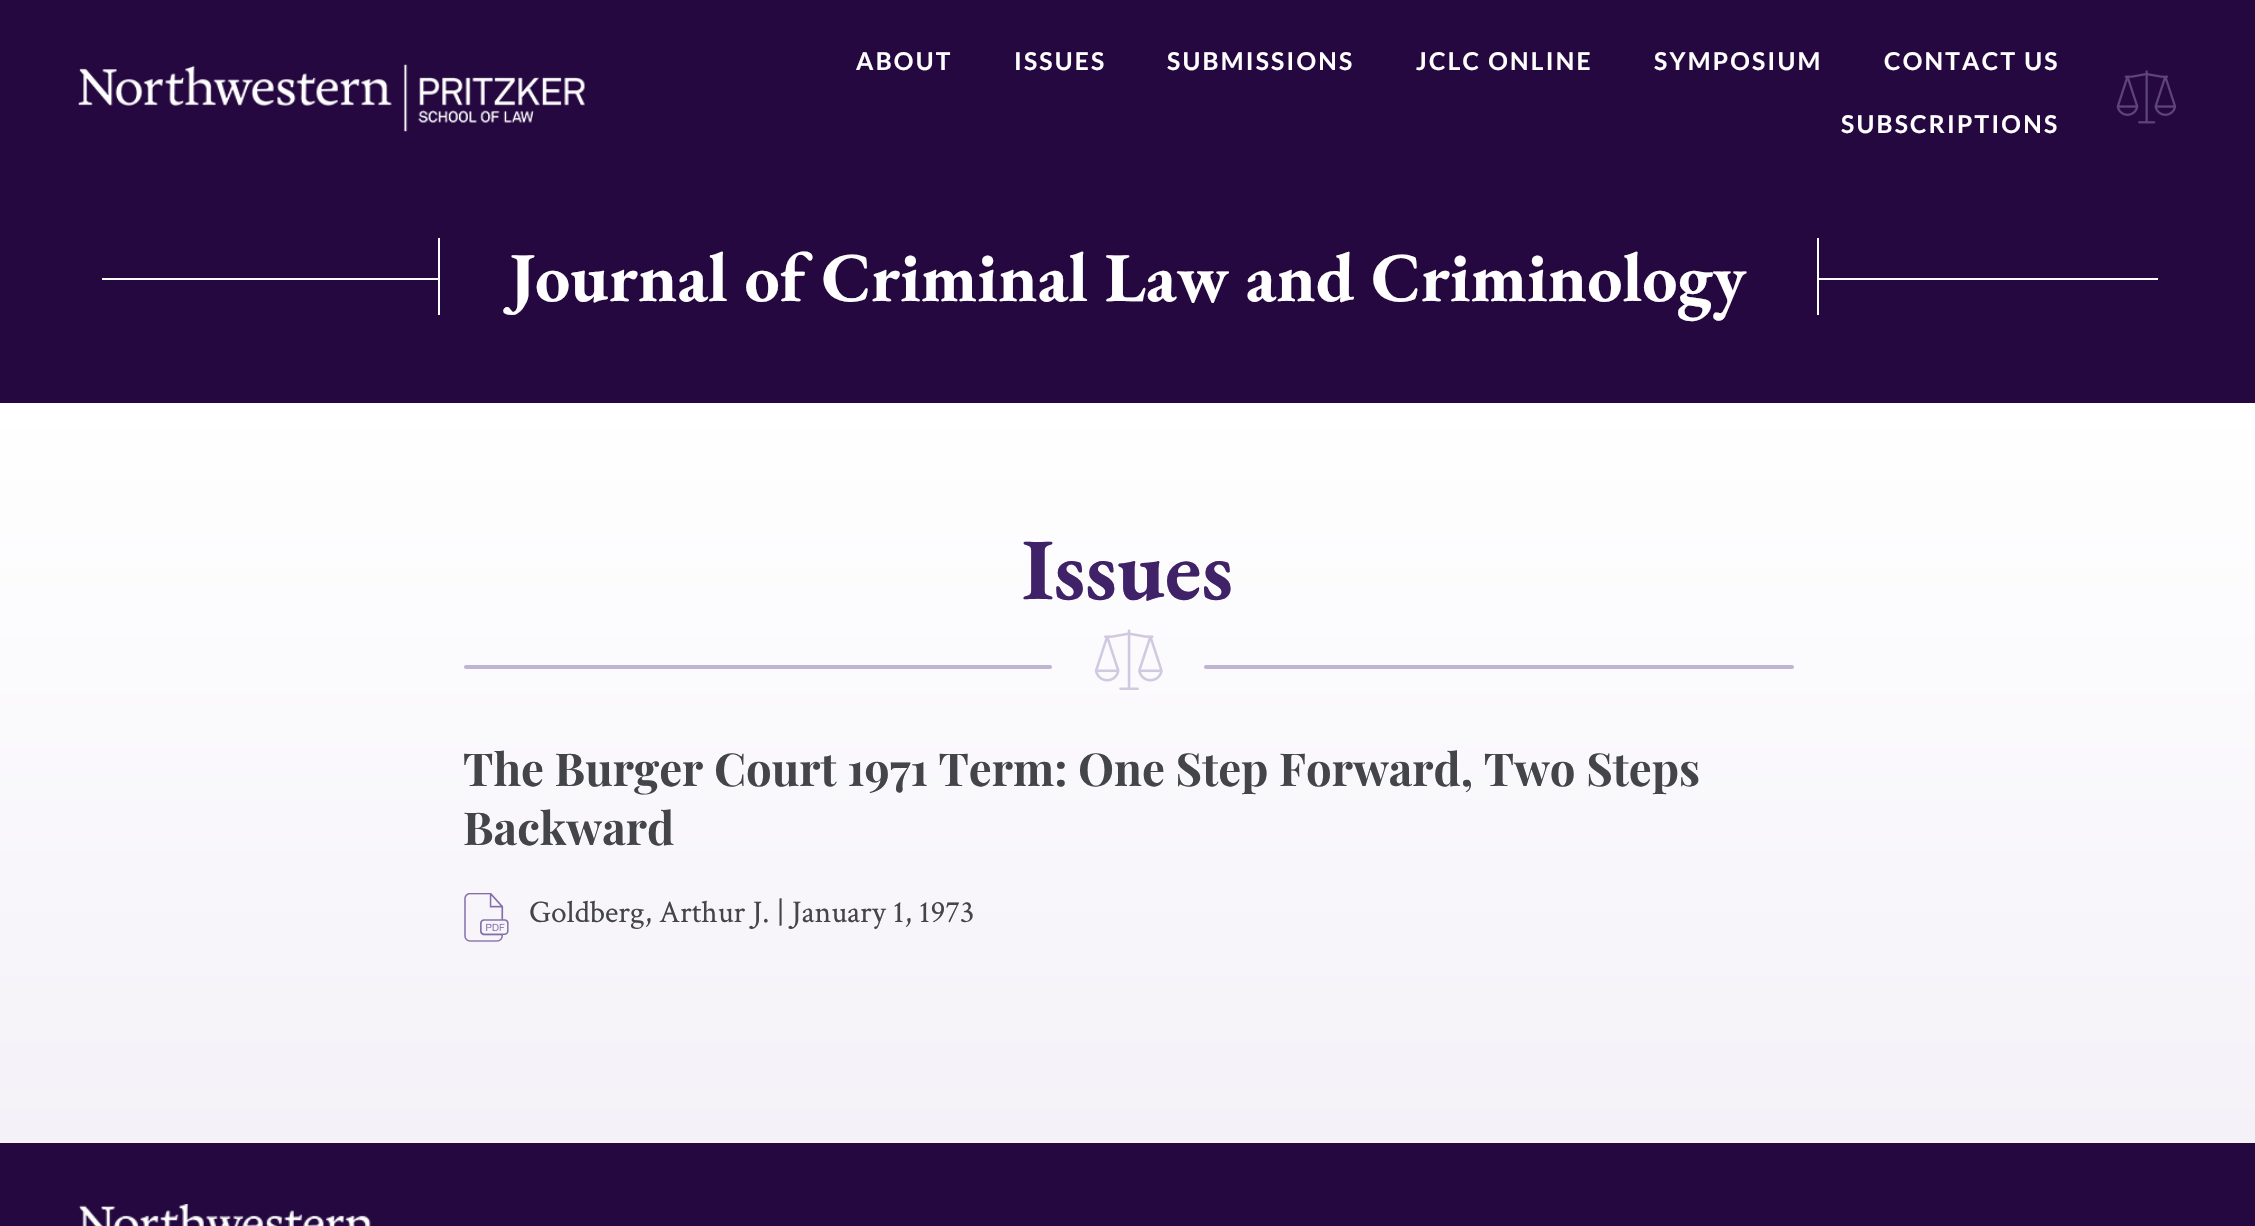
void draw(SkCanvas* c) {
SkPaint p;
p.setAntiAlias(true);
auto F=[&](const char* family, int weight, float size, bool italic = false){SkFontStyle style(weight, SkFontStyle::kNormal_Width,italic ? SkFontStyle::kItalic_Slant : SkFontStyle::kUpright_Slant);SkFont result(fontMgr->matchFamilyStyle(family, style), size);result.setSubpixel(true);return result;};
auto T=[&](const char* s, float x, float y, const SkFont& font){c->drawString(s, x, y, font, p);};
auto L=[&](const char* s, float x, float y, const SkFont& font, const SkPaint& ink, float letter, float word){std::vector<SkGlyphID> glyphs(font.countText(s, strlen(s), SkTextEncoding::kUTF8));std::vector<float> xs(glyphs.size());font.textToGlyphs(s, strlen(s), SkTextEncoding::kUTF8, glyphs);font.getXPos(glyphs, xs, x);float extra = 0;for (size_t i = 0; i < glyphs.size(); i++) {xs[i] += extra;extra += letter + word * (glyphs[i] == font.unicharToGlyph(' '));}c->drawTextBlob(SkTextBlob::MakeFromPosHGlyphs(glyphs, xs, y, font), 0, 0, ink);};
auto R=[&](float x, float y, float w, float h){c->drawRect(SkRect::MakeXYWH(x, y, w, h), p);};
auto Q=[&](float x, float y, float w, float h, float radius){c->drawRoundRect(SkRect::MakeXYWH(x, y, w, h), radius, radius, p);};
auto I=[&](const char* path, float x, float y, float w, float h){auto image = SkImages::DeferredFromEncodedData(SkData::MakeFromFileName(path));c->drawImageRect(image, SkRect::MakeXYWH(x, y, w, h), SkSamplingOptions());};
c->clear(0xff260841);
I("1.png",78,64,507,68);
auto f1 = F("Lato",700,24.5);
p.setColor(0xffffffff);
L("ABOUT",856,70,f1,p,2.25,0);
L("ISSUES",1014,70,f1,p,2.25,0);
L("SUBMISSIONS",1167,70,f1,p,2.25,0);
L("JCLC ONLINE",1416,70,f1,p,2.25,0);
L("SYMPOSIUM",1654,70,f1,p,2.25,0);
L("CONTACT US",1884,70,f1,p,2.25,0);
L("SUBSCRIPTIONS",1841,133,f1,p,2.25,0);
I("2.png",2116,70,61,54);
R(102,278,2056,2);
p.setColor(0xff260841);
R(440,278,1377,2);
p.setColor(0xffffffff);
R(1817,238,2,77);
R(438,238,2,77);
auto f2 = F("EB Garamond",700,70);
T("Journal of Criminal Law and Criminology",509,301,f2);
{
const SkColor colors[] = {0xffffffff,0xfff4f1f8};
const float stops[] = {0,1};
const SkPoint ends[] = {{1128,402}, {1128,1143}};
p.setShader(SkGradientShader::MakeLinear(ends, colors, stops, 2, SkTileMode::kClamp));
p.setAlpha(255);
}
R(0,403,2255,740);
auto f3 = F("EB Garamond",700,87.5);
p.setShader(nullptr);
p.setColor(0xff402268);
T("Issues",1022,599,f3);
I("3.png",1094,629,69,61);
p.setColor(0xffbfb4d3);
Q(464,665,588,4,2);
Q(1204,665,590,4,2);
auto f4 = F("Playfair Display",700,45.5);
p.setColor(0xff434549);
T("The Burger Court 1971 Term: One Step Forward, Two Steps",463,786,f4);
T("Backward",463,845,f4);
I("4.png",464,893,45,49);
auto f5 = F("Crimson Text",400,31.5);
T("Goldberg, Arthur J. | January 1, 1973",529,922,f5);
I("5.png",78,1204,293,22);
}
